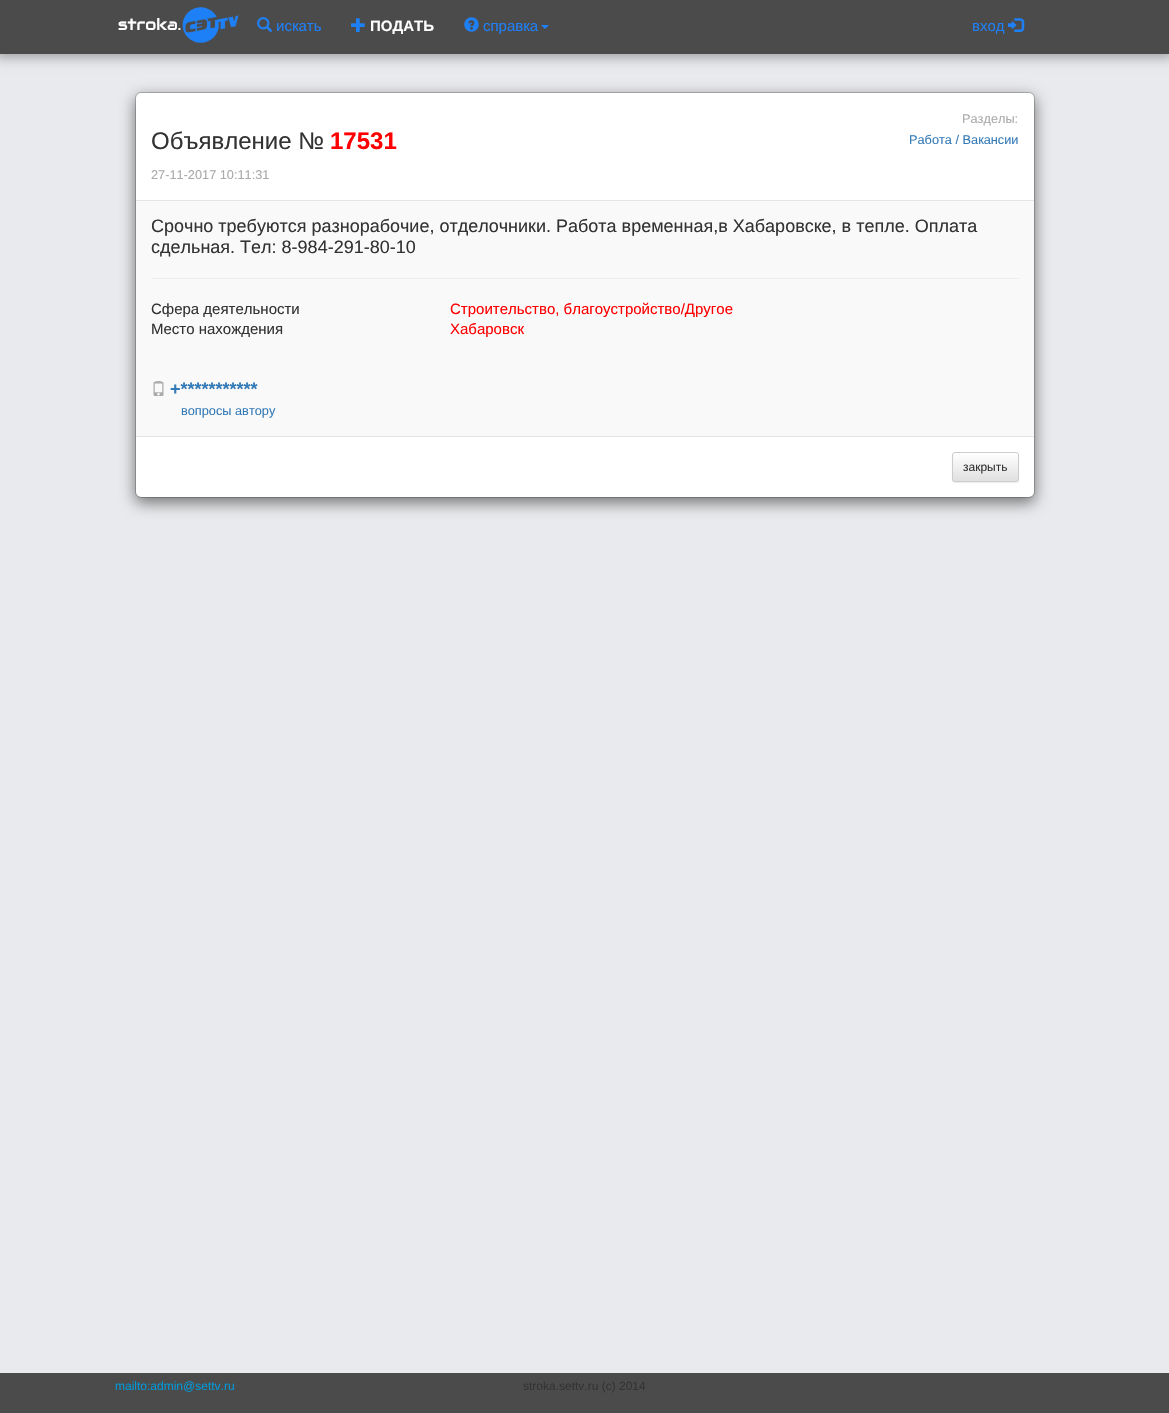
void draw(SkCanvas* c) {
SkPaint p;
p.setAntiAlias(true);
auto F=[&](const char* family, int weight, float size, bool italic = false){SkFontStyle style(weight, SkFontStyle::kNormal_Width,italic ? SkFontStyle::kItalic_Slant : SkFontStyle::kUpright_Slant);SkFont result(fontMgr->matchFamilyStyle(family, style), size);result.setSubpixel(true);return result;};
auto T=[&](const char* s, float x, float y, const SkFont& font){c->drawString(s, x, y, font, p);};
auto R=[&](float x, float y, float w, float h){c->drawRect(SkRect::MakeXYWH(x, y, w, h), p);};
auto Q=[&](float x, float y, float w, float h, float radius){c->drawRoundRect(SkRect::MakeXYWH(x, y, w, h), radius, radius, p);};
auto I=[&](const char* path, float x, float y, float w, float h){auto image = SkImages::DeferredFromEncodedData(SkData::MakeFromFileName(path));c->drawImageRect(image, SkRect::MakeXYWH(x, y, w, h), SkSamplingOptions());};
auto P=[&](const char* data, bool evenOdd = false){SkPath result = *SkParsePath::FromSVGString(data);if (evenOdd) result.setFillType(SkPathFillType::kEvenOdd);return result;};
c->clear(0xffe9eaed);
p.setColor(0x4d000000);
p.setMaskFilter(SkMaskFilter::MakeBlur(kNormal_SkBlurStyle, 5.5));
c->drawRect(SkRect::MakeXYWH(-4,-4,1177,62),p);
p.setMaskFilter(nullptr);
p.setColor(0xff4b4b4b);
R(0,0,1169,54);
auto f1 = F("Audiowide",400,16);
p.setColor(0xffffffff);
T("stroka.",118,30,f1);
I("1.png",182,7,57,36);
I("2.png",257,17,16,15);
auto f2 = F("Liberation Sans",400,15);
p.setColor(0xff1e80f7);
T("искать",276,31,f2);
I("3.png",351,18,14,14);
auto f3 = F("Liberation Sans",700,15);
p.setColor(0xffffffff);
T("ПОДАТЬ",370,31,f3);
I("4.png",464,17,15,15);
p.setColor(0xff1e80f7);
T("справка",483,31,f2);
c->drawPath(P("M541 25h8l-4 4z"),p);
T("вход",972,31,f2);
I("5.png",1008,18,17,14);
p.setColor(0x80000000);
p.setMaskFilter(SkMaskFilter::MakeBlur(kNormal_SkBlurStyle, 7.5));
c->drawRoundRect(SkRect::MakeXYWH(135,97,900,406),6,6,p);
p.setMaskFilter(nullptr);
p.setColor(0xffffffff);
Q(136,93,898,404,5);
p.setStroke(true);
p.setStrokeWidth(1);
p.setColor(0x33000000);
c->drawRoundRect(SkRect::MakeXYWH(135.5,92.5,899,405),5.5,5.5,p);
p.setStroke(false);
p.setColor(0xffe5e5e5);
R(136,200,898,1);
auto f4 = F("Liberation Sans",400,24);
p.setColor(0xff333333);
T("Объявление №",151,149,f4);
auto f5 = F("Liberation Sans",700,24);
p.setColor(0xffff0000);
T("17531",330,149,f5);
auto f6 = F("Liberation Sans",400,12.75);
p.setColor(0xffaaaaaa);
T("27-11-2017 10:11:31",151,179,f6);
T("Разделы:",962,123,f6);
p.setColor(0xff337ab7);
T("Работа / Вакансии",909,144,f6);
p.setColor(0xfff9f9f9);
R(136,201,898,235);
auto f7 = F("Liberation Sans",400,18);
p.setColor(0xff333333);
T("Срочно требуются разнорабочие, отделочники. Работа временная,в Хабаровске, в тепле. Оплата",151,232,f7);
T("сдельная. Тел: 8-984-291-80-10",151,253,f7);
p.setColor(0xffeeeeee);
R(151,278,868,1);
p.setColor(0xff333333);
T("Сфера деятельности",151,314,f2);
p.setColor(0xffff0000);
T("Строительство, благоустройство/Другое",450,314,f2);
p.setColor(0xff333333);
T("Место нахождения",151,334,f2);
p.setColor(0xffff0000);
T("Хабаровск",450,334,f2);
I("6.png",153,381,11,15);
auto f8 = F("Liberation Sans",700,18);
p.setColor(0xff337ab7);
T("+***********",170,395,f8);
T("вопросы автору",181,415,f6);
p.setColor(0xffe5e5e5);
R(136,436,898,1);
p.setColor(0x12000000);
p.setMaskFilter(SkMaskFilter::MakeBlur(kNormal_SkBlurStyle, .5));
c->drawRoundRect(SkRect::MakeXYWH(952,453,67,30),3,3,p);
p.setMaskFilter(nullptr);
c->save();
c->clipPath(P("M955 452h61c1.5 0 3 1.5 3 3v24c0 1.5-1.5 3-3 3h-61c-1.5 0-3-1.5-3-3v-24c0-1.5 1.5-3 3-3z"),true);
{
const SkColor colors[] = {0xffffffff,0xffe0e0e0};
const float stops[] = {0,1};
const SkPoint ends[] = {{986,453}, {986,481}};
p.setShader(SkGradientShader::MakeLinear(ends, colors, stops, 2, SkTileMode::kClamp));
p.setAlpha(255);
}
R(952,453,67,28);
c->restore();
p.setStroke(true);
p.setShader(nullptr);
p.setColor(0xffcccccc);
c->drawRoundRect(SkRect::MakeXYWH(952.5,452.5,66,29),2.5,2.5,p);
auto f9 = F("Liberation Sans",400,12);
p.setStroke(false);
p.setColor(0xff333333);
T("закрыть",963,471,f9);
p.setColor(0xff4b4b4b);
R(0,1373,1169,40);
p.setColor(0xff0199d9);
T("mailto:admin@settv.ru",115,1390,f9);
p.setColor(0xff333333);
T("stroka.settv.ru (c) 2014",523,1390,f9);
}
